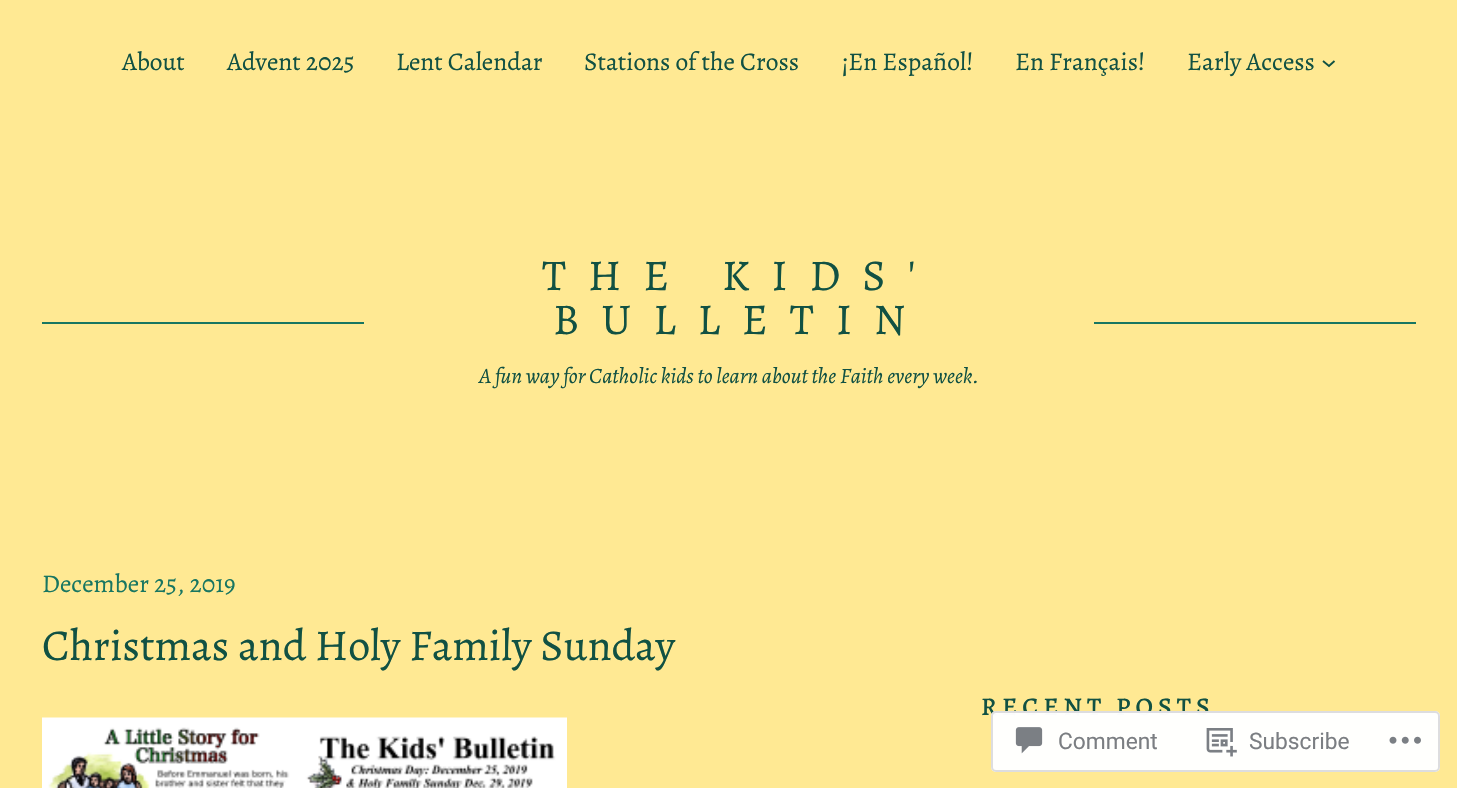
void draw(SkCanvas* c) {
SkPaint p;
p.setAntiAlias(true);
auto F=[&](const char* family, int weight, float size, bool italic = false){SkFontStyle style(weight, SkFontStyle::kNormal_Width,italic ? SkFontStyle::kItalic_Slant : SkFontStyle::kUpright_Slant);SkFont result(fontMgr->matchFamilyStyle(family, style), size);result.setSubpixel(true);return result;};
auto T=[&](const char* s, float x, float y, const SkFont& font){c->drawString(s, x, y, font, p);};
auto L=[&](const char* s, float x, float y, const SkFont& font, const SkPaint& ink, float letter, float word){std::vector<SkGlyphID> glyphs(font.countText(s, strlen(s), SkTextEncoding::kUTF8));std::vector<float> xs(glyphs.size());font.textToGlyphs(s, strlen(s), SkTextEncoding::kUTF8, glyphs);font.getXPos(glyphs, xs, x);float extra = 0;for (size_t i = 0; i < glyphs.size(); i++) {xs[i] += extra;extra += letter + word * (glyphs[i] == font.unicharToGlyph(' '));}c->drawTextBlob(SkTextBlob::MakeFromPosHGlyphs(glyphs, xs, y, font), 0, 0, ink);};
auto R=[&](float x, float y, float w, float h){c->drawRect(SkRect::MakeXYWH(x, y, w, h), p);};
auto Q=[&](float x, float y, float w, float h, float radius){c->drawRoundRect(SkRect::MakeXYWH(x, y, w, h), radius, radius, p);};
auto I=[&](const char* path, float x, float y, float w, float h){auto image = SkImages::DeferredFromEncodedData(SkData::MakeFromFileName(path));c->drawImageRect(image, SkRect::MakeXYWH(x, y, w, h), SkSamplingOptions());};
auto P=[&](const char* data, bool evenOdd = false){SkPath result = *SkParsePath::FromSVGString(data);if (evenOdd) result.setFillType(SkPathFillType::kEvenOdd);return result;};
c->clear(0xffffe993);
auto f1 = F("Alegreya",400,25.5);
p.setColor(0xff115143);
T("About",122,70,f1);
T("Advent 2025",227,70,f1);
T("Lent Calendar",396,70,f1);
T("Stations of the Cross",584,70,f1);
T("¡En Español!",841,70,f1);
T("En Français!",1015,70,f1);
T("Early Access",1187,70,f1);
p.setStroke(true);
p.setStrokeWidth(1.9);
c->drawPath(P("M1323 61l6 5l5.5-5"),p);
p.setStroke(false);
p.setColor(0xff187661);
R(42,322,322,2);
auto f2 = F("Alegreya",400,44);
p.setColor(0xff115143);
L("THE KIDS'",542,290,f2,p,22,0);
L("BULLETIN",553,334,f2,p,22,0);
auto f3 = F("Alegreya",400,21.9,true);
T("A fun way for Catholic kids to learn about the Faith every week.",479,383,f3);
p.setColor(0xff187661);
R(1094,322,322,2);
T("December 25, 2019",42,592,f1);
p.setColor(0xff115143);
T("Christmas and Holy Family Sunday",42,660,f2);
I("1.png",42,717,525,71);
auto f4 = F("Alegreya",500,25.5);
L("RECENT POSTS",981,715,f4,p,5.1,0);
p.setColor(0xfaffffff);
Q(991,711,449,61,5);
p.setStroke(true);
p.setStrokeWidth(2);
p.setColor(0xfadcdcde);
c->drawRoundRect(SkRect::MakeXYWH(992,712,447,59),4,4,p);
I("2.png",1015,727,28,27);
auto f5 = F("Roboto",400,22.75);
p.setStroke(false);
p.setColor(0xff7b7e82);
T("Comment",1058,749,f5);
I("3.png",1206,728,31,29);
T("Subscribe",1249,749,f5);
I("4.png",1389,736,32,8);
}
